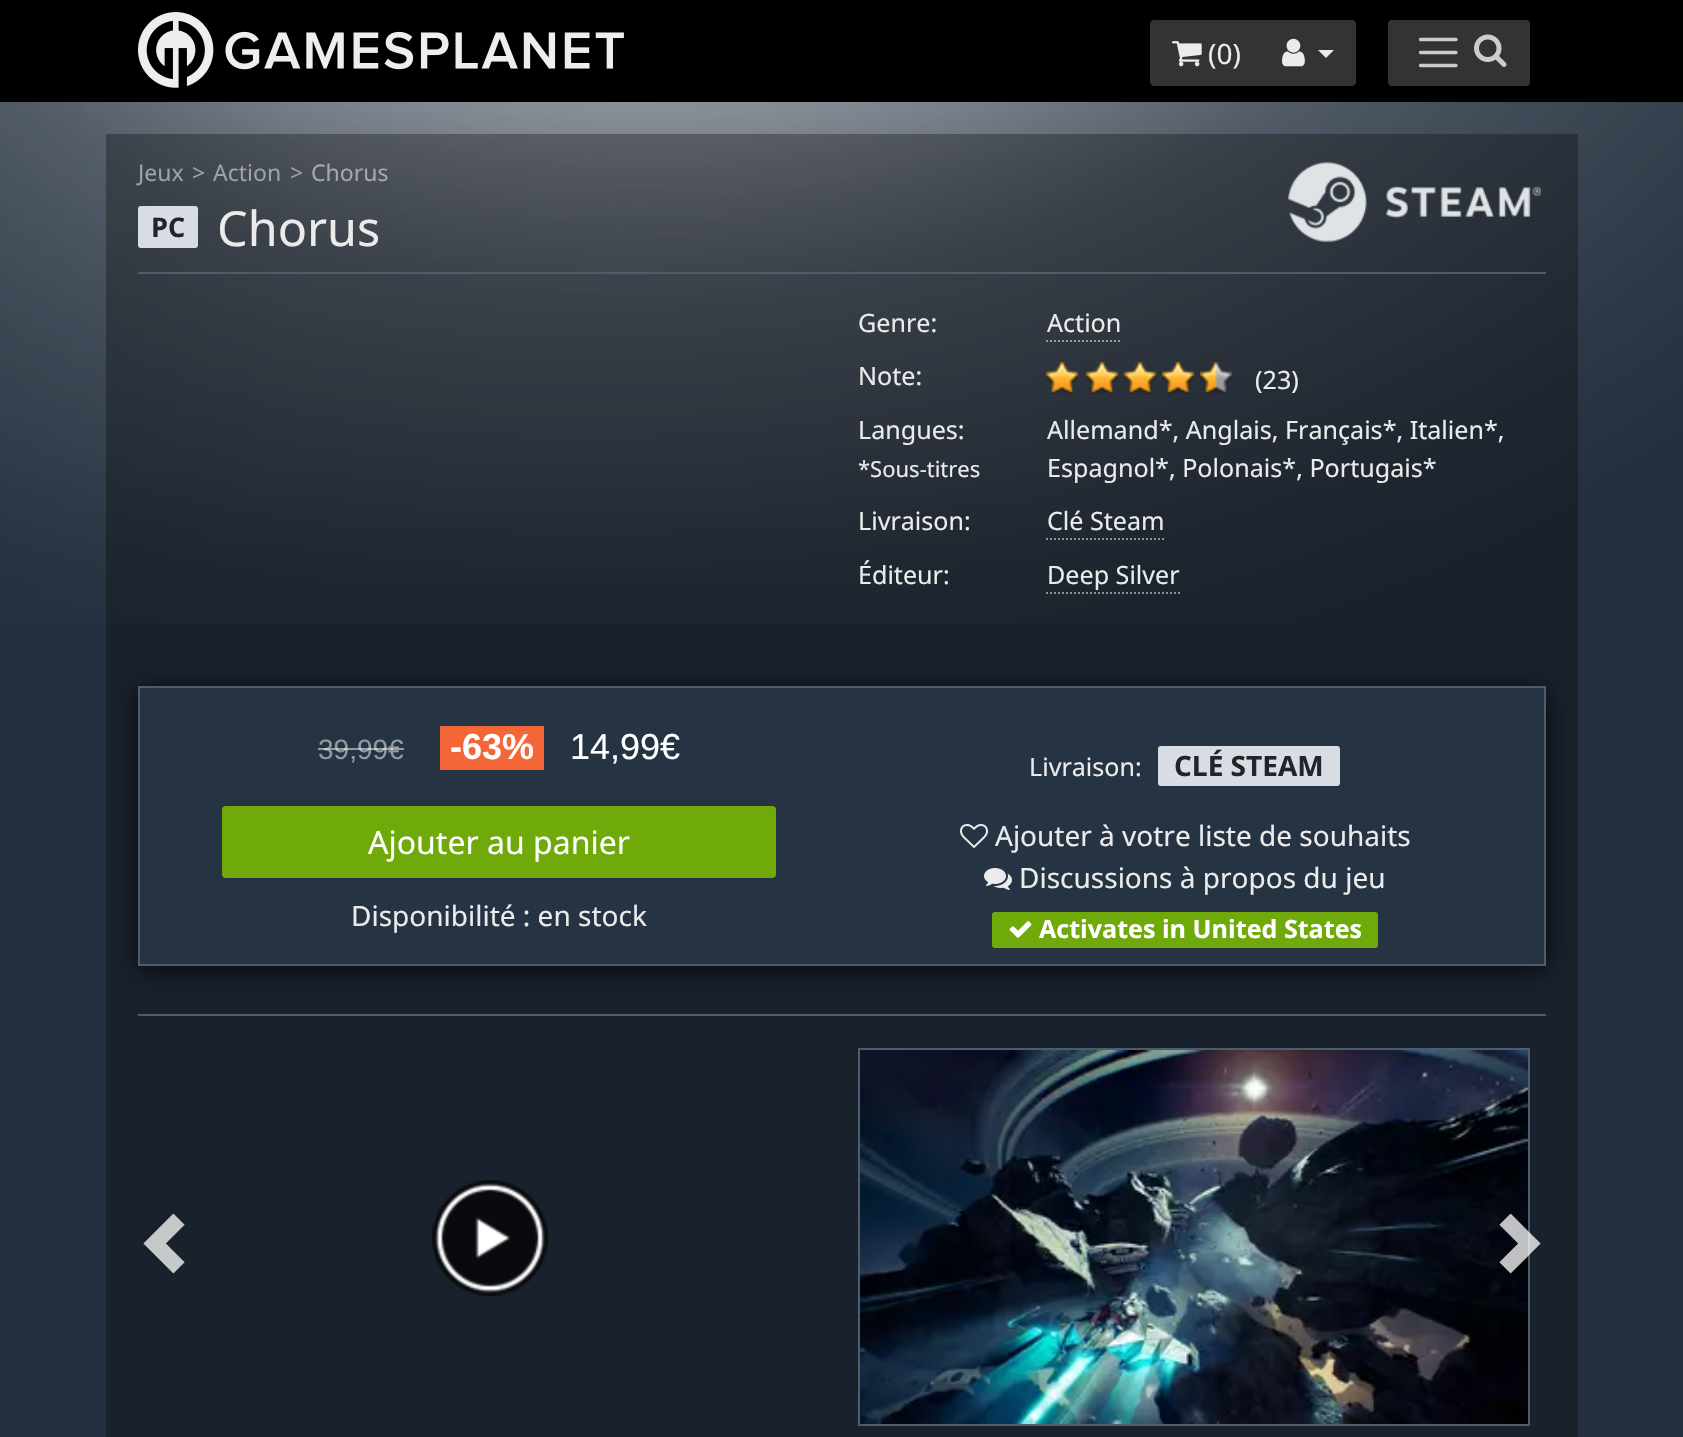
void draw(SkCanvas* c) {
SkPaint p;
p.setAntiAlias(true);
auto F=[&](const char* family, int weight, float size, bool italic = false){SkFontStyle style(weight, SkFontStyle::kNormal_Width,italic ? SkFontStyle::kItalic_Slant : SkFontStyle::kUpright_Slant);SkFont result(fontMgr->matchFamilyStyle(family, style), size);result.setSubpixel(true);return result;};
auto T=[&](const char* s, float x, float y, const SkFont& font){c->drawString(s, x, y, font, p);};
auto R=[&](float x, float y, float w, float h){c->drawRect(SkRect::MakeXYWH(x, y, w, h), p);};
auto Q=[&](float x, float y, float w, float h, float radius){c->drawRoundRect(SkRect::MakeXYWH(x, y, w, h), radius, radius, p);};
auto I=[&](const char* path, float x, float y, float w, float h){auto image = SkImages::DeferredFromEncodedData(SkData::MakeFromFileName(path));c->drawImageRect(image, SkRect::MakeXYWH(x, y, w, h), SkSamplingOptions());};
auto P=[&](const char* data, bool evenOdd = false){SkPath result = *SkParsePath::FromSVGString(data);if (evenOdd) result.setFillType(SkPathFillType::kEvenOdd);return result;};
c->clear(0xff232f3e);
I("1.png",0,102,1683,523);
p.setColor(0xff000000);
R(0,0,1683,102);
I("2.png",138,12,486,76);
p.setColor(0xff333333);
c->drawPath(P("M1154 20h108v66h-108c-2 0-4-2-4-4v-58c0-2 2-4 4-4z"),p);
I("3.png",1172,41,30,26);
auto f1 = F("Noto Sans",400,28);
p.setColor(0xffebebeb);
T("(0)",1208,64,f1);
p.setColor(0xff333333);
c->drawPath(P("M1260 20h92c2 0 4 2 4 4v58c0 2-2 4-4 4h-92z"),p);
I("4.png",1282,38,23,29);
p.setColor(0xffebebeb);
c->drawPath(P("M1318 50h16l-8 8z"),p);
p.setColor(0xff333333);
Q(1388,20,142,66,4);
p.setStroke(true);
p.setStrokeWidth(3.3);
p.setStrokeCap(SkPaint::kRound_Cap);
p.setColor(0xffcccccc);
c->drawPath(P("M1420.5 39.5h35.5m-35.5 13h35.5m-35.5 13h35.5"),p);
I("5.png",1474,34,33,33);
p.setStroke(false);
p.setColor(0x4d000000);
R(106,134,1472,1303);
auto f2 = F("Noto Sans",400,23);
p.setColor(0xff9ea1a5);
T("Jeux",138,181,f2);
T(">",192,181,f2);
T("Action",213,181,f2);
T(">",290,181,f2);
p.setColor(0xffa4a7ab);
T("Chorus",311,181,f2);
p.setColor(0xffd7dde2);
Q(138,206,60,42,3);
auto f3 = F("Noto Sans",700,27);
p.setColor(0xff212529);
T("PC",151,237,f3);
p.setColor(0xff4e5d6c);
R(138,272,1408,2);
auto f4 = F("Noto Sans",400,48.5);
p.setColor(0xffebebeb);
T("Chorus",217,246,f4);
I("6.png",1288,162,253,80);
auto f5 = F("Noto Sans",400,25.1);
T("Genre:",858,332,f5);
T("Action",1047,332,f5);
p.setStroke(true);
p.setStrokeWidth(2);
p.setStrokeCap(SkPaint::kButt_Cap);
p.setColor(0xff969a9f);
p.setPathEffect(SkDashPathEffect::Make({{2,2}}, 0));
c->drawPath(P("M1046 341h76"),p);
p.setPathEffect(nullptr);
p.setStroke(false);
p.setColor(0xffebebeb);
T("Note:",858,385,f5);
I("7.png",1046,362,32,32);
I("8.png",1086,362,32,32);
I("9.png",1124,362,32,32);
I("10.png",1162,362,32,32);
I("11.png",1200,362,32,32);
T("(23)",1255,389,f5);
T("Langues:",858,439,f5);
auto f6 = F("Noto Sans",400,22);
T("*Sous-titres",858,477,f6);
T("Allemand*, Anglais, Français*, Italien*,",1047,439,f5);
T("Espagnol*, Polonais*, Portugais*",1047,477,f5);
T("Livraison:",858,530,f5);
T("Clé Steam",1047,530,f5);
p.setStroke(true);
p.setColor(0xff8f9398);
p.setPathEffect(SkDashPathEffect::Make({{2,2}}, 0));
c->drawPath(P("M1046 539h118"),p);
p.setPathEffect(nullptr);
p.setStroke(false);
p.setColor(0xffebebeb);
T("Éditeur:",858,584,f5);
T("Deep Silver",1047,584,f5);
p.setStroke(true);
p.setColor(0xff8d9196);
p.setPathEffect(SkDashPathEffect::Make({{2,2}}, 0));
c->drawPath(P("M1046 593h134"),p);
p.setPathEffect(nullptr);
p.setStroke(false);
p.setColor(0xbf000000);
p.setMaskFilter(SkMaskFilter::MakeBlur(kNormal_SkBlurStyle, 12));
c->drawRect(SkRect::MakeXYWH(138,690,1408,280),p);
p.setMaskFilter(nullptr);
p.setColor(0xff263343);
c->drawRect(SkRect::MakeXYWH(139,687,1406,278),p);
p.setStroke(true);
p.setColor(0xff4e5d6c);
c->drawRect(SkRect::MakeXYWH(139,687,1406,278),p);
auto f7 = F("Liberation Sans",400,28);
p.setStroke(false);
p.setColor(0xff9399a1);
T("39,99€",318,759,f7);
p.setColor(0x80ffffff);
R(318,748,86,2);
p.setColor(0xfff26638);
R(440,726,104,44);
auto f8 = F("Liberation Sans",700,36);
p.setColor(0xffffffff);
T("-63%",450,759,f8);
auto f9 = F("Liberation Sans",400,36);
T("14,99€",570,759,f9);
p.setColor(0xff6faa0a);
c->drawRoundRect(SkRect::MakeXYWH(223,807,552,70),3,3,p);
p.setStroke(true);
c->drawRoundRect(SkRect::MakeXYWH(223,807,552,70),3,3,p);
auto f10 = F("Noto Sans",400,32);
p.setStroke(false);
p.setColor(0xffffffff);
T("Ajouter au panier",368,854,f10);
p.setColor(0xffebebeb);
T("Disponibilité : en stock",351,926,f1);
T("Livraison:",1029,776,f5);
p.setColor(0xffd7dde2);
Q(1158,746,182,40,3);
auto f11 = F("Noto Sans",700,28);
p.setColor(0xff212529);
T("CLÉ STEAM",1174,776,f11);
I("12.png",960,824,28,24);
p.setColor(0xffebebeb);
T("Ajouter à votre liste de souhaits",995,846,f1);
I("13.png",984,868,28,22);
T("Discussions à propos du jeu",1019,888,f1);
p.setColor(0xff6faa0a);
Q(992,912,386,36,3);
I("14.png",1009,921,23,17);
auto f12 = F("Noto Sans",700,25.1);
p.setColor(0xffffffff);
T("Activates in United States",1039,938,f12);
p.setColor(0xff4e5d6c);
R(138,1014,1408,2);
I("15.png",143,1214,42,60);
I("16.png",432,1180,116,116);
p.setStroke(true);
c->drawRect(SkRect::MakeXYWH(859,1049,670,376),p);
I("17.png",860,1050,668,374);
I("18.png",1499,1214,42,60);
}
